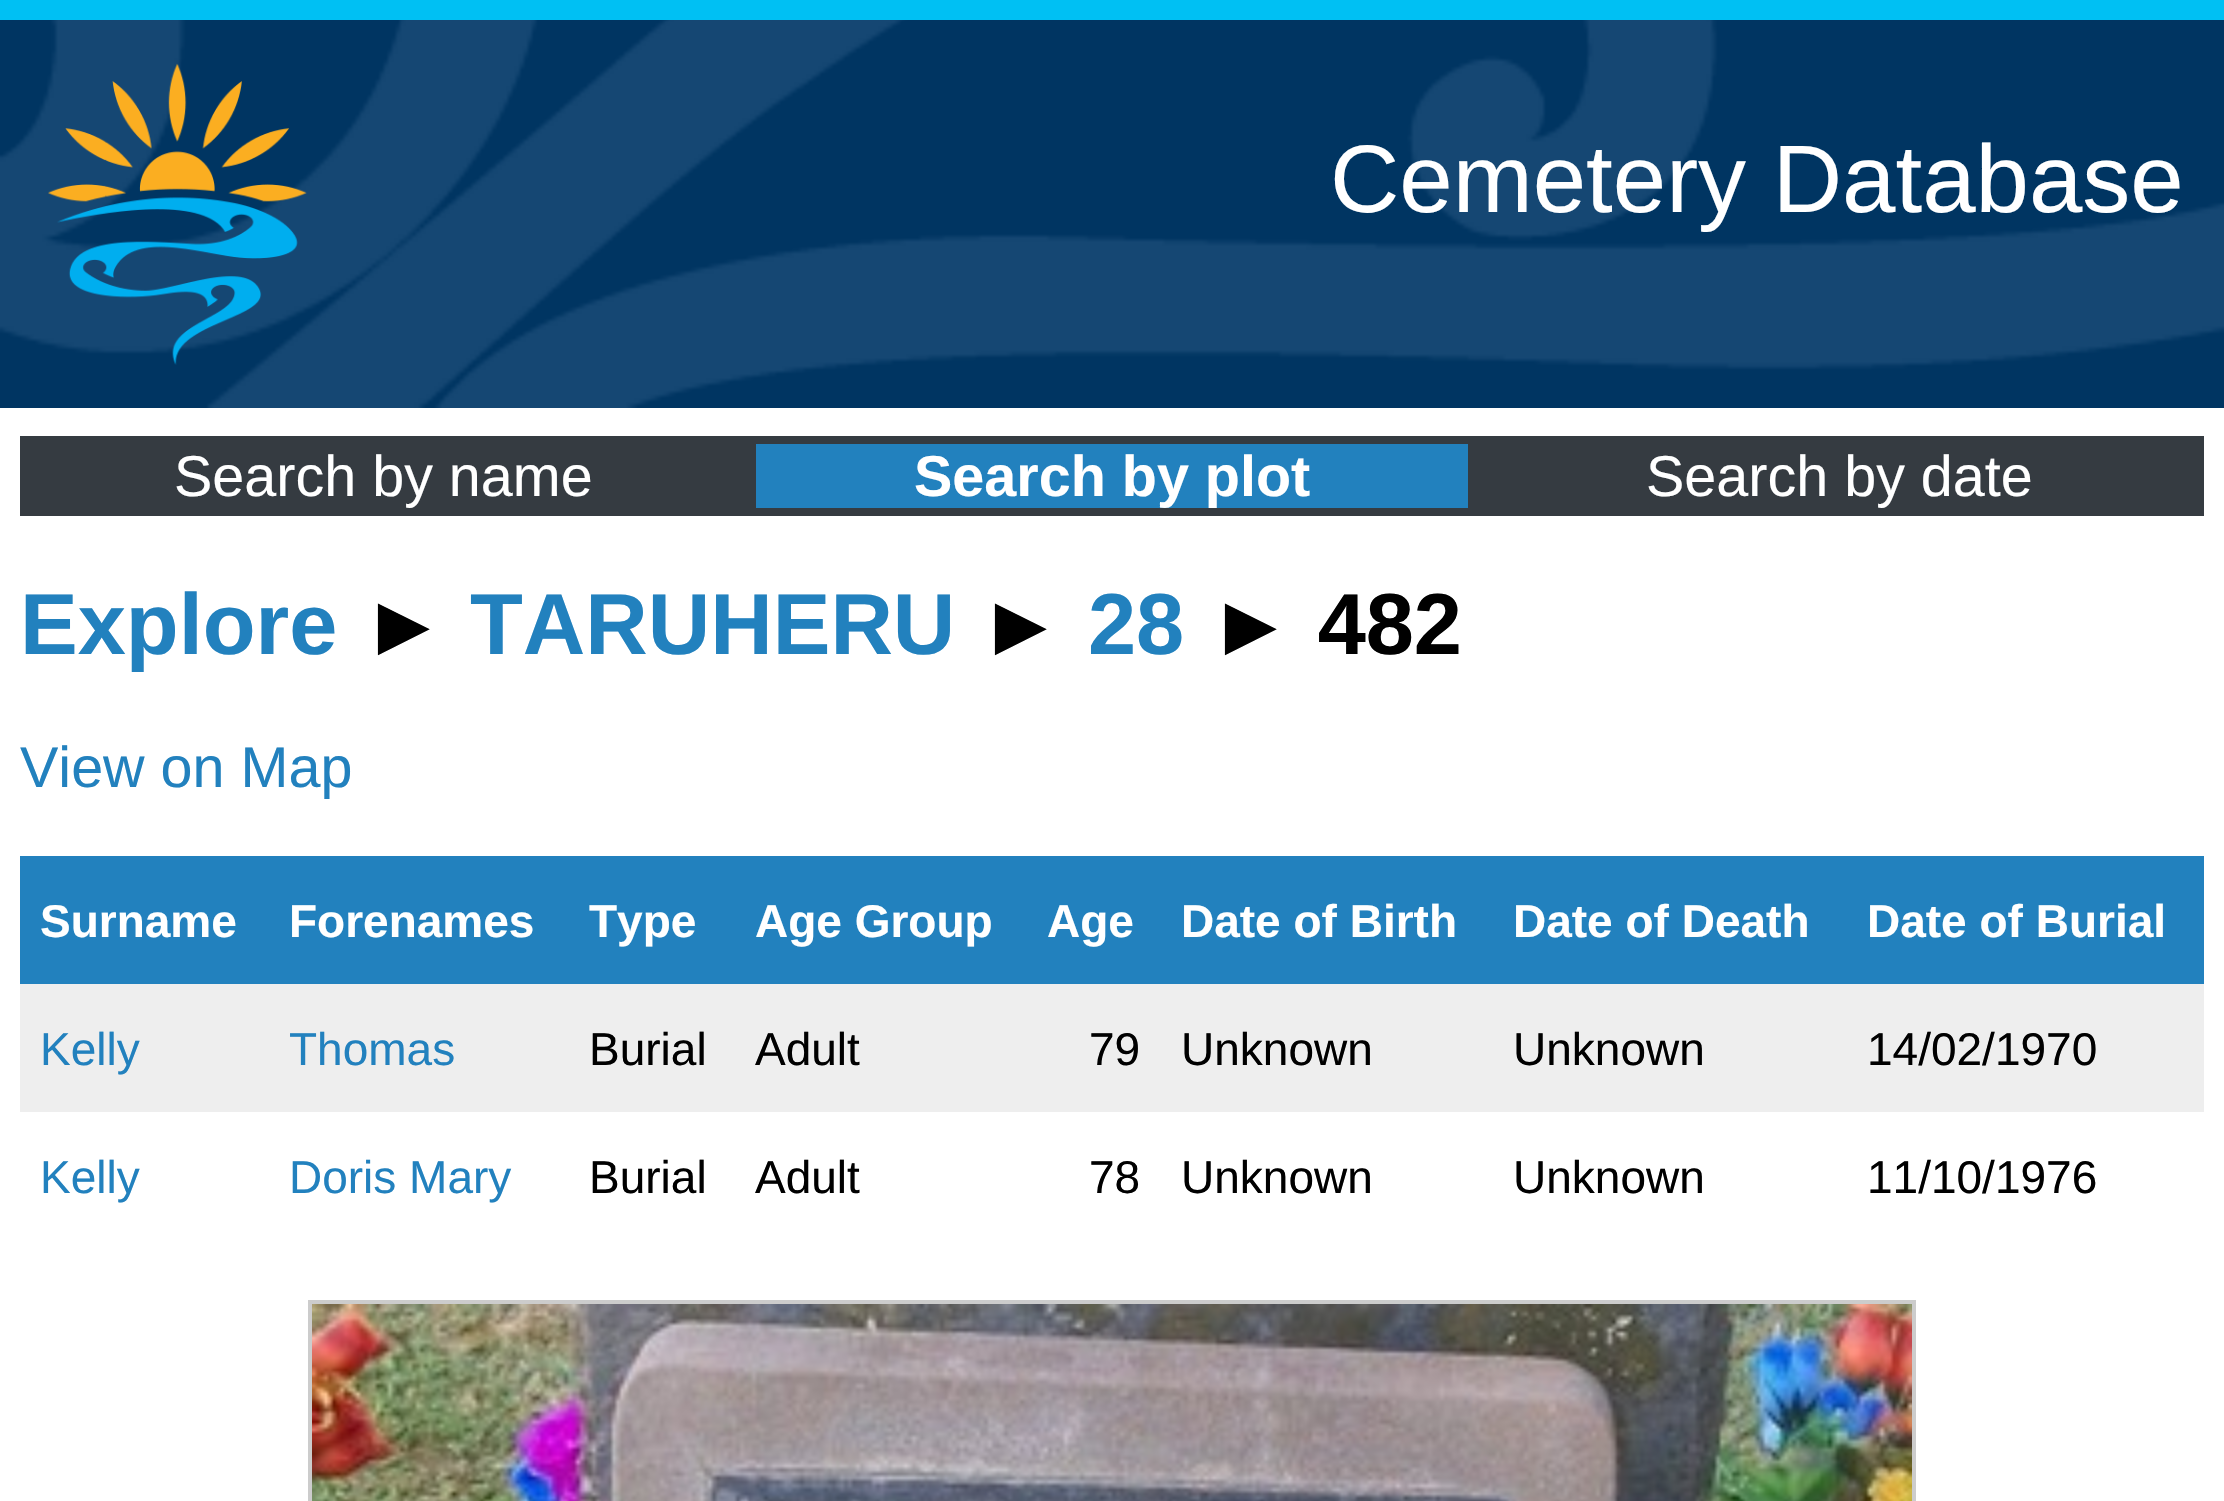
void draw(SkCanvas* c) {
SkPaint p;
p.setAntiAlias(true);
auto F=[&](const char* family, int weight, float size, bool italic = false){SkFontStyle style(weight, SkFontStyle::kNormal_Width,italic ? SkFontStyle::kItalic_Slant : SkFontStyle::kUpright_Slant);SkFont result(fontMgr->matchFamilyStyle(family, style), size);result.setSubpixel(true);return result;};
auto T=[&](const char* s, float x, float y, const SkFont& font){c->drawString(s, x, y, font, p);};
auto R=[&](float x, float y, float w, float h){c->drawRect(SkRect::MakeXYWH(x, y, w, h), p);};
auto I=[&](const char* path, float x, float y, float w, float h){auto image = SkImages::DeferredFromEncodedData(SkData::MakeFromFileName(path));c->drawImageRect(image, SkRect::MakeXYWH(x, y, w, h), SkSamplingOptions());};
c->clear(0xffffffff);
I("1.png",0,20,2224,388);
p.setColor(0xff00c0f3);
R(0,0,2224,20);
I("2.png",48,63,259,302);
auto f1 = F("Liberation Sans",400,96);
p.setColor(0xffffffff);
T("Cemetery Database",1330,212,f1);
p.setColor(0xff353b41);
R(20,436,2184,80);
auto f2 = F("Liberation Sans",400,57.5);
p.setColor(0xffffffff);
T("Search by name",174,496,f2);
p.setColor(0xff2281be);
R(756,444,712,64);
auto f3 = F("Liberation Sans",700,57.5);
p.setColor(0xffffffff);
T("Search by plot",914,496,f3);
T("Search by date",1646,496,f2);
auto f4 = F("Liberation Sans",700,86.5);
p.setColor(0xff2281be);
T("Explore",20,654,f4);
p.setColor(0xff000000);
T("►",361,654,f4);
p.setColor(0xff2281be);
T("TARUHERU",470,654,f4);
p.setColor(0xff000000);
T("►",978,654,f4);
p.setColor(0xff2281be);
T("28",1088,654,f4);
p.setColor(0xff000000);
T("► 482",1208,654,f4);
p.setColor(0xff2281be);
T("View on Map",20,787,f2);
R(20,856,2184,128);
auto f5 = F("Liberation Sans",700,46);
p.setColor(0xffffffff);
T("Surname",40,937,f5);
T("Forenames",289,937,f5);
T("Type",589,937,f5);
T("Age Group",755,937,f5);
T("Age",1047,937,f5);
T("Date of Birth",1181,937,f5);
T("Date of Death",1513,937,f5);
T("Date of Burial",1867,937,f5);
p.setColor(0xffeeeeee);
R(20,984,2184,128);
auto f6 = F("Liberation Sans",400,46);
p.setColor(0xff2281be);
T("Kelly",40,1065,f6);
T("Thomas",289,1065,f6);
p.setColor(0xff000000);
T("Burial",589,1065,f6);
T("Adult",755,1065,f6);
T("79",1089,1065,f6);
T("Unknown",1181,1065,f6);
T("Unknown",1513,1065,f6);
T("14/02/1970",1867,1065,f6);
p.setColor(0xff2281be);
T("Kelly",40,1193,f6);
T("Doris Mary",289,1193,f6);
p.setColor(0xff000000);
T("Burial",589,1193,f6);
T("Adult",755,1193,f6);
T("78",1089,1193,f6);
T("Unknown",1181,1193,f6);
T("Unknown",1513,1193,f6);
T("11/10/1976",1867,1193,f6);
p.setStroke(true);
p.setStrokeWidth(4);
p.setColor(0xffcccccc);
c->drawRect(SkRect::MakeXYWH(310,1302,1604,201),p);
I("3.png",312,1304,1600,197);
}
